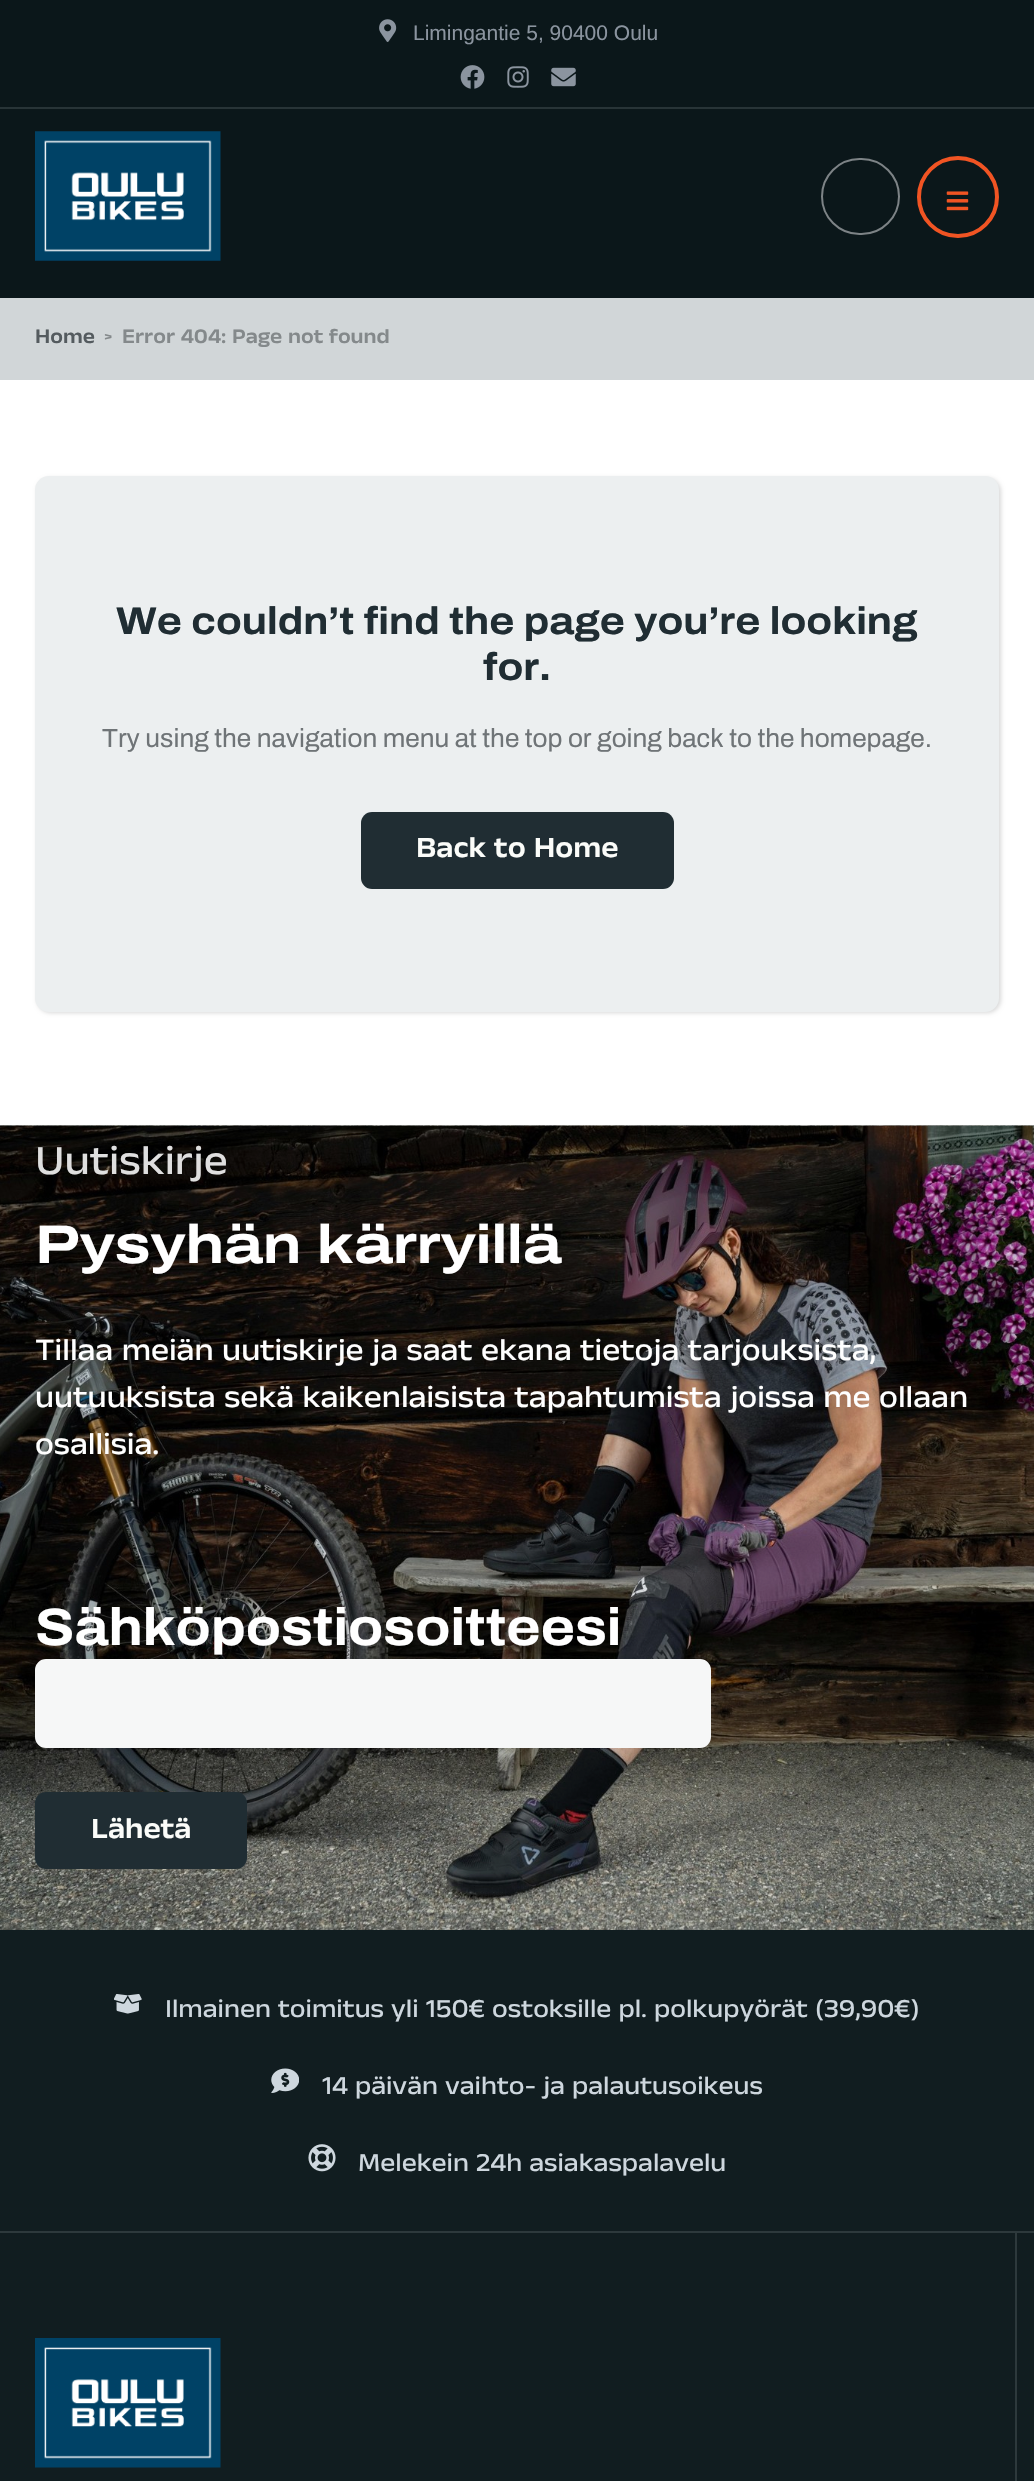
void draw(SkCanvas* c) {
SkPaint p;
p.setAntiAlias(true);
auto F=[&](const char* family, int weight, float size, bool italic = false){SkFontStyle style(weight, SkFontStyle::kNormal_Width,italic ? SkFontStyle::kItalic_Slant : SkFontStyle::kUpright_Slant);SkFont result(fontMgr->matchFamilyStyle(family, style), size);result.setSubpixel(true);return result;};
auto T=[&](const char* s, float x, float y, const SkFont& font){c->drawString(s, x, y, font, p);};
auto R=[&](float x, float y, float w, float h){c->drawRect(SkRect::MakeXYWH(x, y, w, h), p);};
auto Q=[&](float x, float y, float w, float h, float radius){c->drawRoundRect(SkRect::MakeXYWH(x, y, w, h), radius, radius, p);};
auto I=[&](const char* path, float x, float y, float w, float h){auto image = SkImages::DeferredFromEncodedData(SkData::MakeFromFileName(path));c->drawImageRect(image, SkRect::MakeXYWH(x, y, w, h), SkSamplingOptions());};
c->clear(0xffffffff);
p.setColor(0xff0b171a);
R(0,0,1034,298);
p.setColor(0xff283437);
R(0,107,1034,2);
I("1.png",379,19,18,23);
auto f1 = F("Liberation Sans",400,21);
p.setColor(0xff8b949f);
T("Limingantie 5, 90400 Oulu",413,40,f1);
I("2.png",460,65,25,24);
I("3.png",507,66,22,22);
I("4.png",551,67,25,20);
I("5.png",35,131,186,130);
p.setStroke(true);
p.setStrokeWidth(2);
p.setColor(0xff7d8386);
c->drawRoundRect(SkRect::MakeXYWH(822,159,77,75),37.5,37.5,p);
p.setStrokeWidth(4);
p.setColor(0xfff15423);
c->drawCircle(958,197,39,p);
I("6.png",946,191,23,20);
p.setStroke(false);
p.setColor(0xffd1d6d8);
R(0,298,1034,82);
auto f2 = F("Anek Telugu",600,21);
p.setColor(0xff545b5f);
T("Home",35,343,f2);
auto f3 = F("Anek Telugu",600,14);
p.setColor(0xff84898b);
T(">",104,341,f3);
T("Error 404: Page not found",122,343,f2);
p.setColor(0x26000000);
p.setMaskFilter(SkMaskFilter::MakeBlur(kNormal_SkBlurStyle, 2));
c->drawRoundRect(SkRect::MakeXYWH(37,478,964,535),14,14,p);
p.setMaskFilter(nullptr);
p.setColor(0xffeceff0);
Q(35,476,964,536,14);
auto f4 = F("Archivo",700,38.5);
p.setColor(0xff202d33);
T("We couldn’t find the page you’re looking",116,634,f4);
T("for.",483,680,f4);
auto f5 = F("Archivo",400,26.25);
p.setColor(0xff6f7477);
T("Try using the navigation menu at the top or going back to the homepage.",102,747,f5);
p.setColor(0xff202d33);
Q(361,812,313,77,11);
auto f6 = F("Anek Telugu",600,29.75);
p.setColor(0xfffbfcf9);
T("Back to Home",416,857,f6);
I("7.png",0,1125,1034,805);
auto f7 = F("Anek Telugu",500,42);
p.setColor(0xffdfdfdf);
T("Uutiskirje",35,1174,f7);
auto f8 = F("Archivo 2",700,54.25);
p.setColor(0xffffffff);
T("Pysyhän kärryillä",35,1263,f8);
auto f9 = F("Anek Telugu",500,31.5);
T("Tillaa meiän uutiskirje ja saat ekana tietoja tarjouksista,",35,1360,f9);
T("uutuuksista sekä kaikenlaisista tapahtumista joissa me ollaan",35,1407,f9);
T("osallisia.",35,1454,f9);
auto f10 = F("Archivo",700,52.5);
T("Sähköpostiosoitteesi",35,1645,f10);
p.setColor(0xfff6f7f7);
c->drawRoundRect(SkRect::MakeXYWH(36,1660,674,87),10,10,p);
p.setStroke(true);
p.setStrokeWidth(2);
c->drawRoundRect(SkRect::MakeXYWH(36,1660,674,87),10,10,p);
p.setStroke(false);
p.setColor(0xff202d33);
Q(35,1792,212,77,11);
p.setColor(0xfffbfcf9);
T("Lähetä",91,1838,f6);
p.setColor(0xff111d20);
R(0,1930,1034,301);
p.setColor(0xff2d393c);
R(0,2231,1034,2);
I("8.png",114,1994,28,20);
auto f11 = F("Anek Telugu",500,26.25);
p.setColor(0xffced7de);
T("Ilmainen toimitus yli 150€ ostoksille pl. polkupyörät (39,90€)",165,2017,f11);
I("9.png",271,2068,28,25);
T("14 päivän vaihto- ja palautusoikeus",322,2094,f11);
I("10.png",308,2144,28,28);
T("Melekein 24h asiakaspalavelu",358,2171,f11);
p.setColor(0xff111d20);
R(0,2233,1034,248);
p.setColor(0xff2d393c);
R(1015,2233,2,248);
I("11.png",35,2338,186,130);
}
